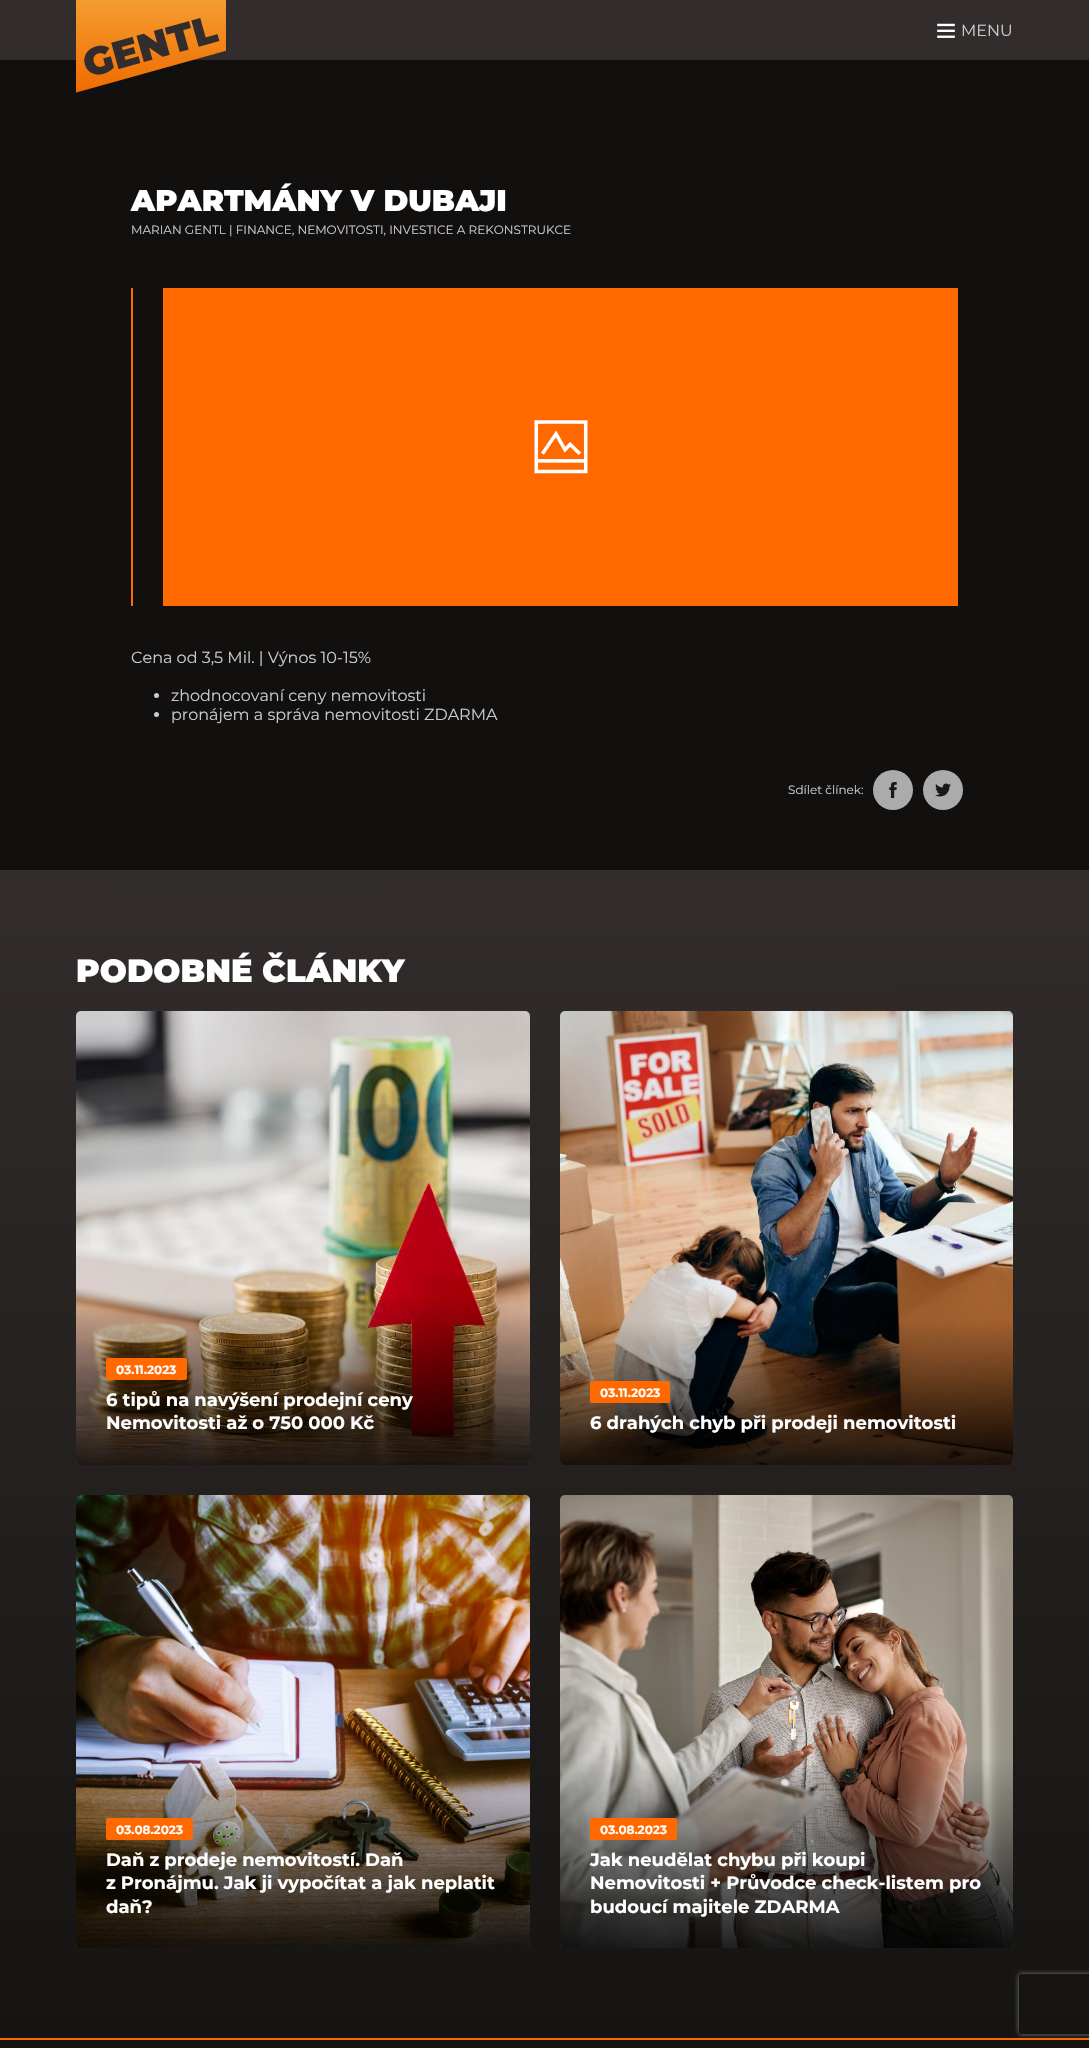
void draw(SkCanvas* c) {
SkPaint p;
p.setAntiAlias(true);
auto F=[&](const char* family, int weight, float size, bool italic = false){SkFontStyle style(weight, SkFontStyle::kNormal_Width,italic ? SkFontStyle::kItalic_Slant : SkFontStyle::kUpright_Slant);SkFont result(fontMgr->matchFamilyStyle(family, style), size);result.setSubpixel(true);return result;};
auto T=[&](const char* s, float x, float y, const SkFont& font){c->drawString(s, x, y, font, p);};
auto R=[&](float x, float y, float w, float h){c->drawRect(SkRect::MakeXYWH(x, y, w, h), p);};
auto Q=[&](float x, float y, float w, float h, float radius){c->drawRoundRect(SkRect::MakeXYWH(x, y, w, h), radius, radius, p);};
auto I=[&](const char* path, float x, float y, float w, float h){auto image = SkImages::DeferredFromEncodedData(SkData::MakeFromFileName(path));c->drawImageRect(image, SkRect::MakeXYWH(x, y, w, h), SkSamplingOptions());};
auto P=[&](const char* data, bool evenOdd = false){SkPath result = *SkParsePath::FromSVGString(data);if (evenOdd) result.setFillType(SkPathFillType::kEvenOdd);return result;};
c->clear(0xff120f0f);
p.setColor(0xff322d2c);
R(0,0,1089,60);
I("1.png",76,0,150,93);
I("2.png",937,23,18,15);
auto f1 = F("Montserrat",400,16);
p.setColor(0xffcbcbcb);
T("MENU",961,36,f1);
auto f2 = F("Montserrat",900,30);
p.setColor(0xffffffff);
T("APARTMÁNY V DUBAJI",131,211,f2);
auto f3 = F("Montserrat",400,12);
p.setColor(0xffcbcbcb);
T("MARIAN GENTL | FINANCE, NEMOVITOSTI, INVESTICE A REKONSTRUKCE",131,234,f3);
p.setColor(0xffff6900);
R(131,288,2,318);
R(163,288,795,318);
I("3.png",534,420,54,54);
p.setColor(0xffcbcbcb);
T("Cena od 3,5 Mil. | Výnos 10-15%",131,663,f1);
c->drawCircle(156.5,695.5,2.5,p);
T("zhodnocovaní ceny nemovitosti",171,701,f1);
c->drawCircle(156.5,714.5,2.5,p);
T("pronájem a správa nemovitosti ZDARMA",171,720,f1);
T("Sdílet člínek:",788,794,f3);
p.setColor(0xffacabab);
c->drawCircle(893,790,20,p);
I("4.png",889,782,8,16);
c->drawCircle(943,790,20,p);
I("5.png",935,783,16,14);
{
const SkColor colors[] = {0xff322d2c,0xff151412};
const float stops[] = {0,1};
const SkPoint ends[] = {{544,870}, {545,2038}};
p.setShader(SkGradientShader::MakeLinear(ends, colors, stops, 2, SkTileMode::kClamp));
p.setAlpha(255);
}
R(0,870,1089,1168);
auto f4 = F("Montserrat",900,32);
p.setShader(nullptr);
p.setColor(0xffffffff);
T("PODOBNÉ ČLÁNKY",76,982,f4);
I("6.png",76,1011,454,454);
{
const SkColor colors[] = {0x00000000,0xd9000000};
const float stops[] = {0,1};
const SkPoint ends[] = {{303,1298}, {303,1465}};
p.setShader(SkGradientShader::MakeLinear(ends, colors, stops, 2, SkTileMode::kClamp));
p.setAlpha(255);
}
c->drawPath(P("M76 1298h454v162c0 3-2 5-5 5h-444c-3 0-5-2-5-5z"),p);
p.setShader(nullptr);
p.setColor(0xffff6900);
Q(106,1358,81,22,2);
auto f5 = F("Montserrat",700,12);
p.setColor(0xffffffff);
T("03.11.2023",116,1374,f5);
auto f6 = F("Montserrat",700,18);
T("6 tipů na navýšení prodejní ceny",106,1406,f6);
T("Nemovitosti až o 750 000 Kč",106,1429,f6);
I("7.png",560,1011,453,454);
{
const SkColor colors[] = {0x00000000,0xd9000000};
const float stops[] = {0,1};
const SkPoint ends[] = {{787,1321}, {787,1465}};
p.setShader(SkGradientShader::MakeLinear(ends, colors, stops, 2, SkTileMode::kClamp));
p.setAlpha(255);
}
c->drawPath(P("M560 1321h453v139c0 3-2 5-5 5h-443c-3 0-5-2-5-5z"),p);
p.setShader(nullptr);
p.setColor(0xffff6900);
Q(590,1381,80,22,2);
p.setColor(0xffffffff);
T("03.11.2023",600,1397,f5);
T("6 drahých chyb při prodeji nemovitosti",590,1429,f6);
I("8.png",76,1495,454,453);
{
const SkColor colors[] = {0x00000000,0xd9000000};
const float stops[] = {0,1};
const SkPoint ends[] = {{303,1758}, {303,1948}};
p.setShader(SkGradientShader::MakeLinear(ends, colors, stops, 2, SkTileMode::kClamp));
p.setAlpha(255);
}
c->drawPath(P("M76 1758h454v185c0 3-2 5-5 5h-444c-3 0-5-2-5-5z"),p);
p.setShader(nullptr);
p.setColor(0xffff6900);
Q(106,1818,87,22,2);
p.setColor(0xffffffff);
T("03.08.2023",116,1834,f5);
T("Daň z prodeje nemovitostí. Daň",106,1866,f6);
T("z Pronájmu. Jak ji vypočítat a jak neplatit",106,1889,f6);
T("daň?",106,1913,f6);
I("9.png",560,1495,453,453);
{
const SkColor colors[] = {0x00000000,0xd9000000};
const float stops[] = {0,1};
const SkPoint ends[] = {{787,1758}, {787,1948}};
p.setShader(SkGradientShader::MakeLinear(ends, colors, stops, 2, SkTileMode::kClamp));
p.setAlpha(255);
}
c->drawPath(P("M560 1758h453v185c0 3-2 5-5 5h-443c-3 0-5-2-5-5z"),p);
p.setShader(nullptr);
p.setColor(0xffff6900);
Q(590,1818,87,22,2);
p.setColor(0xffffffff);
T("03.08.2023",600,1834,f5);
T("Jak neudělat chybu při koupi",590,1866,f6);
T("Nemovitosti + Průvodce check-listem pro",590,1889,f6);
T("budoucí majitele ZDARMA",590,1913,f6);
p.setColor(0xff151412);
R(0,2040,1089,8);
p.setColor(0xffff6900);
R(0,2038,1089,2);
c->save();
c->clipPath(P("M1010 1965h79v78h-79zm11 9h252c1 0 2 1 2 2v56c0 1-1 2-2 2h-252c-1 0-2-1-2-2v-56c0-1 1-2 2-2z",true),true);
p.setColor(0xff808080);
p.setMaskFilter(SkMaskFilter::MakeBlur(kNormal_SkBlurStyle, 2.5));
c->drawRoundRect(SkRect::MakeXYWH(1019,1974,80,60),2,2,p);
p.setMaskFilter(nullptr);
c->restore();
}
